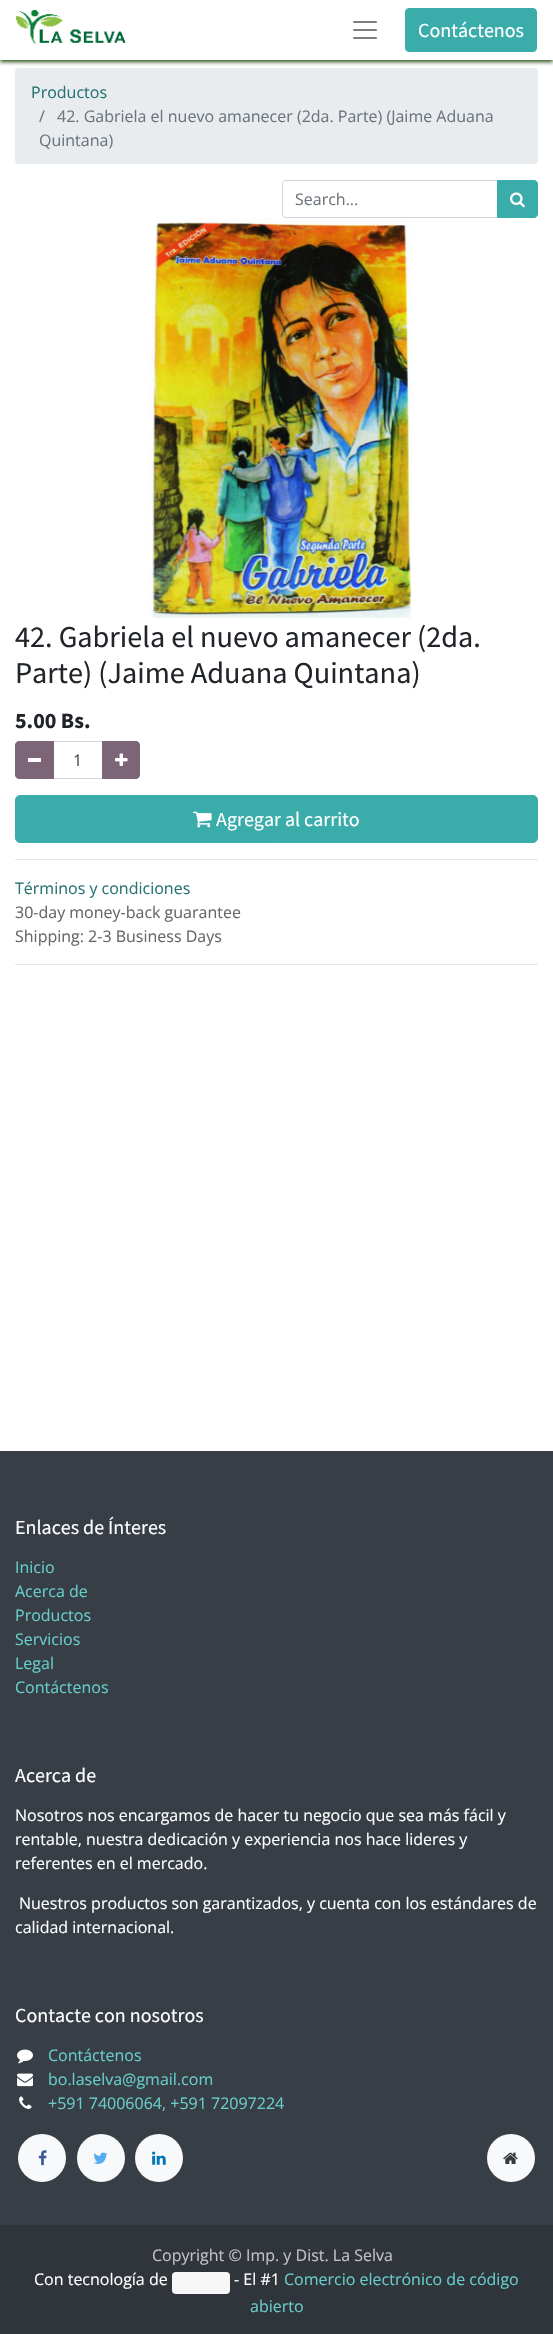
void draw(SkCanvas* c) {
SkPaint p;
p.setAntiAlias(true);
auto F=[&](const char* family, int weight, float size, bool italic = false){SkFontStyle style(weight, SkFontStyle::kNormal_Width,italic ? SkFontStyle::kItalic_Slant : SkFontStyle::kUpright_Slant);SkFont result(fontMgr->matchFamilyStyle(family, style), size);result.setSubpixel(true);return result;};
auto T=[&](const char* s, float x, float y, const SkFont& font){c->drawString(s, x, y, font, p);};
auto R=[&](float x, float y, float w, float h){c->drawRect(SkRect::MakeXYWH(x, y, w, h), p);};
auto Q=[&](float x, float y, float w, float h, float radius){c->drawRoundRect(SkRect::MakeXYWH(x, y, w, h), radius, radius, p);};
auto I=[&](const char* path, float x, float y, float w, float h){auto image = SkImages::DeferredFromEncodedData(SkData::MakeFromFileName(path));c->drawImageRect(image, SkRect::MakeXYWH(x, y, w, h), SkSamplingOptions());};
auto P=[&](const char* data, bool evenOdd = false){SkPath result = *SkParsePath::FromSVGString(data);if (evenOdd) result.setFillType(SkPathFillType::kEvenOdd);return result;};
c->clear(0xffffffff);
p.setColor(0xffe9ecef);
Q(15,68,523,96,4);
c->save();
c->clipRect(SkRect::MakeXYWH(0,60,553,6));
p.setColor(0xff295218);
p.setMaskFilter(SkMaskFilter::MakeBlur(kNormal_SkBlurStyle, 2));
c->drawRect(SkRect::MakeXYWH(0,2,553,60),p);
p.setMaskFilter(nullptr);
c->restore();
I("1.png",16,10,110,34);
I("2.png",353,21,24,18);
p.setColor(0xff3aadaa);
c->drawRoundRect(SkRect::MakeXYWH(405.5,8.5,131,43),3.5,3.5,p);
p.setStroke(true);
p.setStrokeWidth(1);
c->drawRoundRect(SkRect::MakeXYWH(405.5,8.5,131,43),3.5,3.5,p);
auto f1 = F("Source Sans Pro",400,20);
p.setStroke(false);
p.setColor(0xffffffff);
T("Contáctenos",418,37,f1);
auto f2 = F("Open Sans",400,16);
p.setColor(0xff267372);
T("Productos",31,98,f2);
p.setColor(0xff6c757d);
T("/",39,122,f2);
T("42. Gabriela el nuevo amanecer (2da. Parte) (Jaime Aduana",57,122,f2);
T("Quintana)",39,146,f2);
p.setStroke(true);
p.setColor(0xffced4da);
c->drawPath(P("M286 180.5h211.5v37h-211.5c-2 0-3.5-1.5-3.5-3.5v-30c0-2 1.5-3.5 3.5-3.5z"),p);
p.setStroke(false);
p.setColor(0xff6c757d);
T("Search...",295,205,f2);
p.setColor(0xff3aadaa);
c->drawPath(P("M497.5 180.5h36.5c2 0 3.5 1.5 3.5 3.5v30c0 2-1.5 3.5-3.5 3.5h-36.5z"),p);
p.setStroke(true);
c->drawPath(P("M497.5 180.5h36.5c2 0 3.5 1.5 3.5 3.5v30c0 2-1.5 3.5-3.5 3.5h-36.5z"),p);
I("3.png",510,192,15,16);
I("4.png",148,218,264,400);
auto f3 = F("Source Sans Pro",400,30.25);
p.setStroke(false);
p.setColor(0xff212529);
T("42. Gabriela el nuevo amanecer (2da.",15,647,f3);
T("Parte) (Jaime Aduana Quintana)",15,683,f3);
auto f4 = F("Source Sans Pro",700,22);
T("5.00 Bs.",15,728,f4);
p.setStroke(true);
p.setColor(0xffced4da);
c->drawRect(SkRect::MakeXYWH(53.5,741.5,49,37),p);
p.setStroke(false);
p.setColor(0xff7c6576);
c->drawPath(P("M19 741.5h34.5v37h-34.5c-2 0-3.5-1.5-3.5-3.5v-30c0-2 1.5-3.5 3.5-3.5z"),p);
p.setStroke(true);
c->drawPath(P("M19 741.5h34.5v37h-34.5c-2 0-3.5-1.5-3.5-3.5v-30c0-2 1.5-3.5 3.5-3.5z"),p);
p.setStroke(false);
p.setColor(0xffffffff);
R(28,758,13,4);
p.setColor(0xff495057);
T("1",73,766,f2);
p.setColor(0xff7c6576);
c->drawPath(P("M102.5 741.5h33.5c2 0 3.5 1.5 3.5 3.5v30c0 2-1.5 3.5-3.5 3.5h-33.5z"),p);
p.setStroke(true);
c->drawPath(P("M102.5 741.5h33.5c2 0 3.5 1.5 3.5 3.5v30c0 2-1.5 3.5-3.5 3.5h-33.5z"),p);
I("5.png",115,753,13,13);
p.setStroke(false);
p.setColor(0xff3aadaa);
c->drawRoundRect(SkRect::MakeXYWH(15.5,795.5,522,47),4.5,4.5,p);
p.setStroke(true);
c->drawRoundRect(SkRect::MakeXYWH(15.5,795.5,522,47),4.5,4.5,p);
I("6.png",193,811,19,17);
p.setStroke(false);
p.setColor(0xffffffff);
T("Agregar al carrito",216,826,f1);
p.setColor(0xffe6e6e6);
R(15,859,523,1);
p.setColor(0xff267372);
T("Términos y condiciones",15,894,f2);
p.setColor(0xff646669);
T("30-day money-back guarantee",15,918,f2);
T("Shipping: 2-3 Business Days",15,942,f2);
p.setColor(0xffe6e6e6);
R(15,964,523,1);
p.setColor(0xff383e45);
R(0,1451,553,774);
p.setColor(0xffffffff);
T("Enlaces de Ínteres",15,1534,f1);
p.setColor(0xff66ccca);
T("Inicio",15,1573,f2);
T("Acerca de",15,1597,f2);
T("Productos",15,1621,f2);
T("Servicios",15,1645,f2);
T("Legal",15,1669,f2);
T("Contáctenos",15,1693,f2);
p.setColor(0xffffffff);
T("Acerca de",15,1782,f1);
T("Nosotros nos encargamos de hacer tu negocio que sea más fácil y",15,1821,f2);
T("rentable, nuestra dedicación y experiencia nos hace lideres y",15,1845,f2);
T("referentes en el mercado.",15,1869,f2);
T("Nuestros productos son garantizados, y cuenta con los estándares de",19,1909,f2);
T("calidad internacional.",15,1933,f2);
T("Contacte con nosotros",15,2022,f1);
I("7.png",17,2049,16,15);
p.setColor(0xff66ccca);
T("Contáctenos",48,2061,f2);
I("8.png",17,2073,16,14);
T("bo.laselva@gmail.com",48,2085,f2);
I("9.png",19,2096,13,13);
T("+591 74006064, +591 72097224",48,2109,f2);
p.setColor(0xfff8f9fa);
c->drawCircle(42,2158,24,p);
I("10.png",38,2150,9,16);
c->drawCircle(101,2158,24,p);
I("11.png",93,2152,15,12);
c->drawCircle(159,2158,24,p);
I("12.png",152,2151,14,14);
c->drawCircle(511,2158,24,p);
I("13.png",503,2152,15,12);
p.setColor(0xff30353b);
R(0,2225,553,109);
p.setColor(0xffc1c2c4);
T("Copyright © Imp. y Dist. La Selva",152,2261,f2);
p.setColor(0xffffffff);
T("Con tecnología de",34,2285,f2);
p.setColor(0xfff7f7f7);
Q(172,2272,58,22,4);
p.setColor(0xffffffff);
T("- El #1",234,2285,f2);
p.setColor(0xff66ccca);
T("Comercio electrónico de código",284,2285,f2);
T("abierto",250,2312,f2);
}
